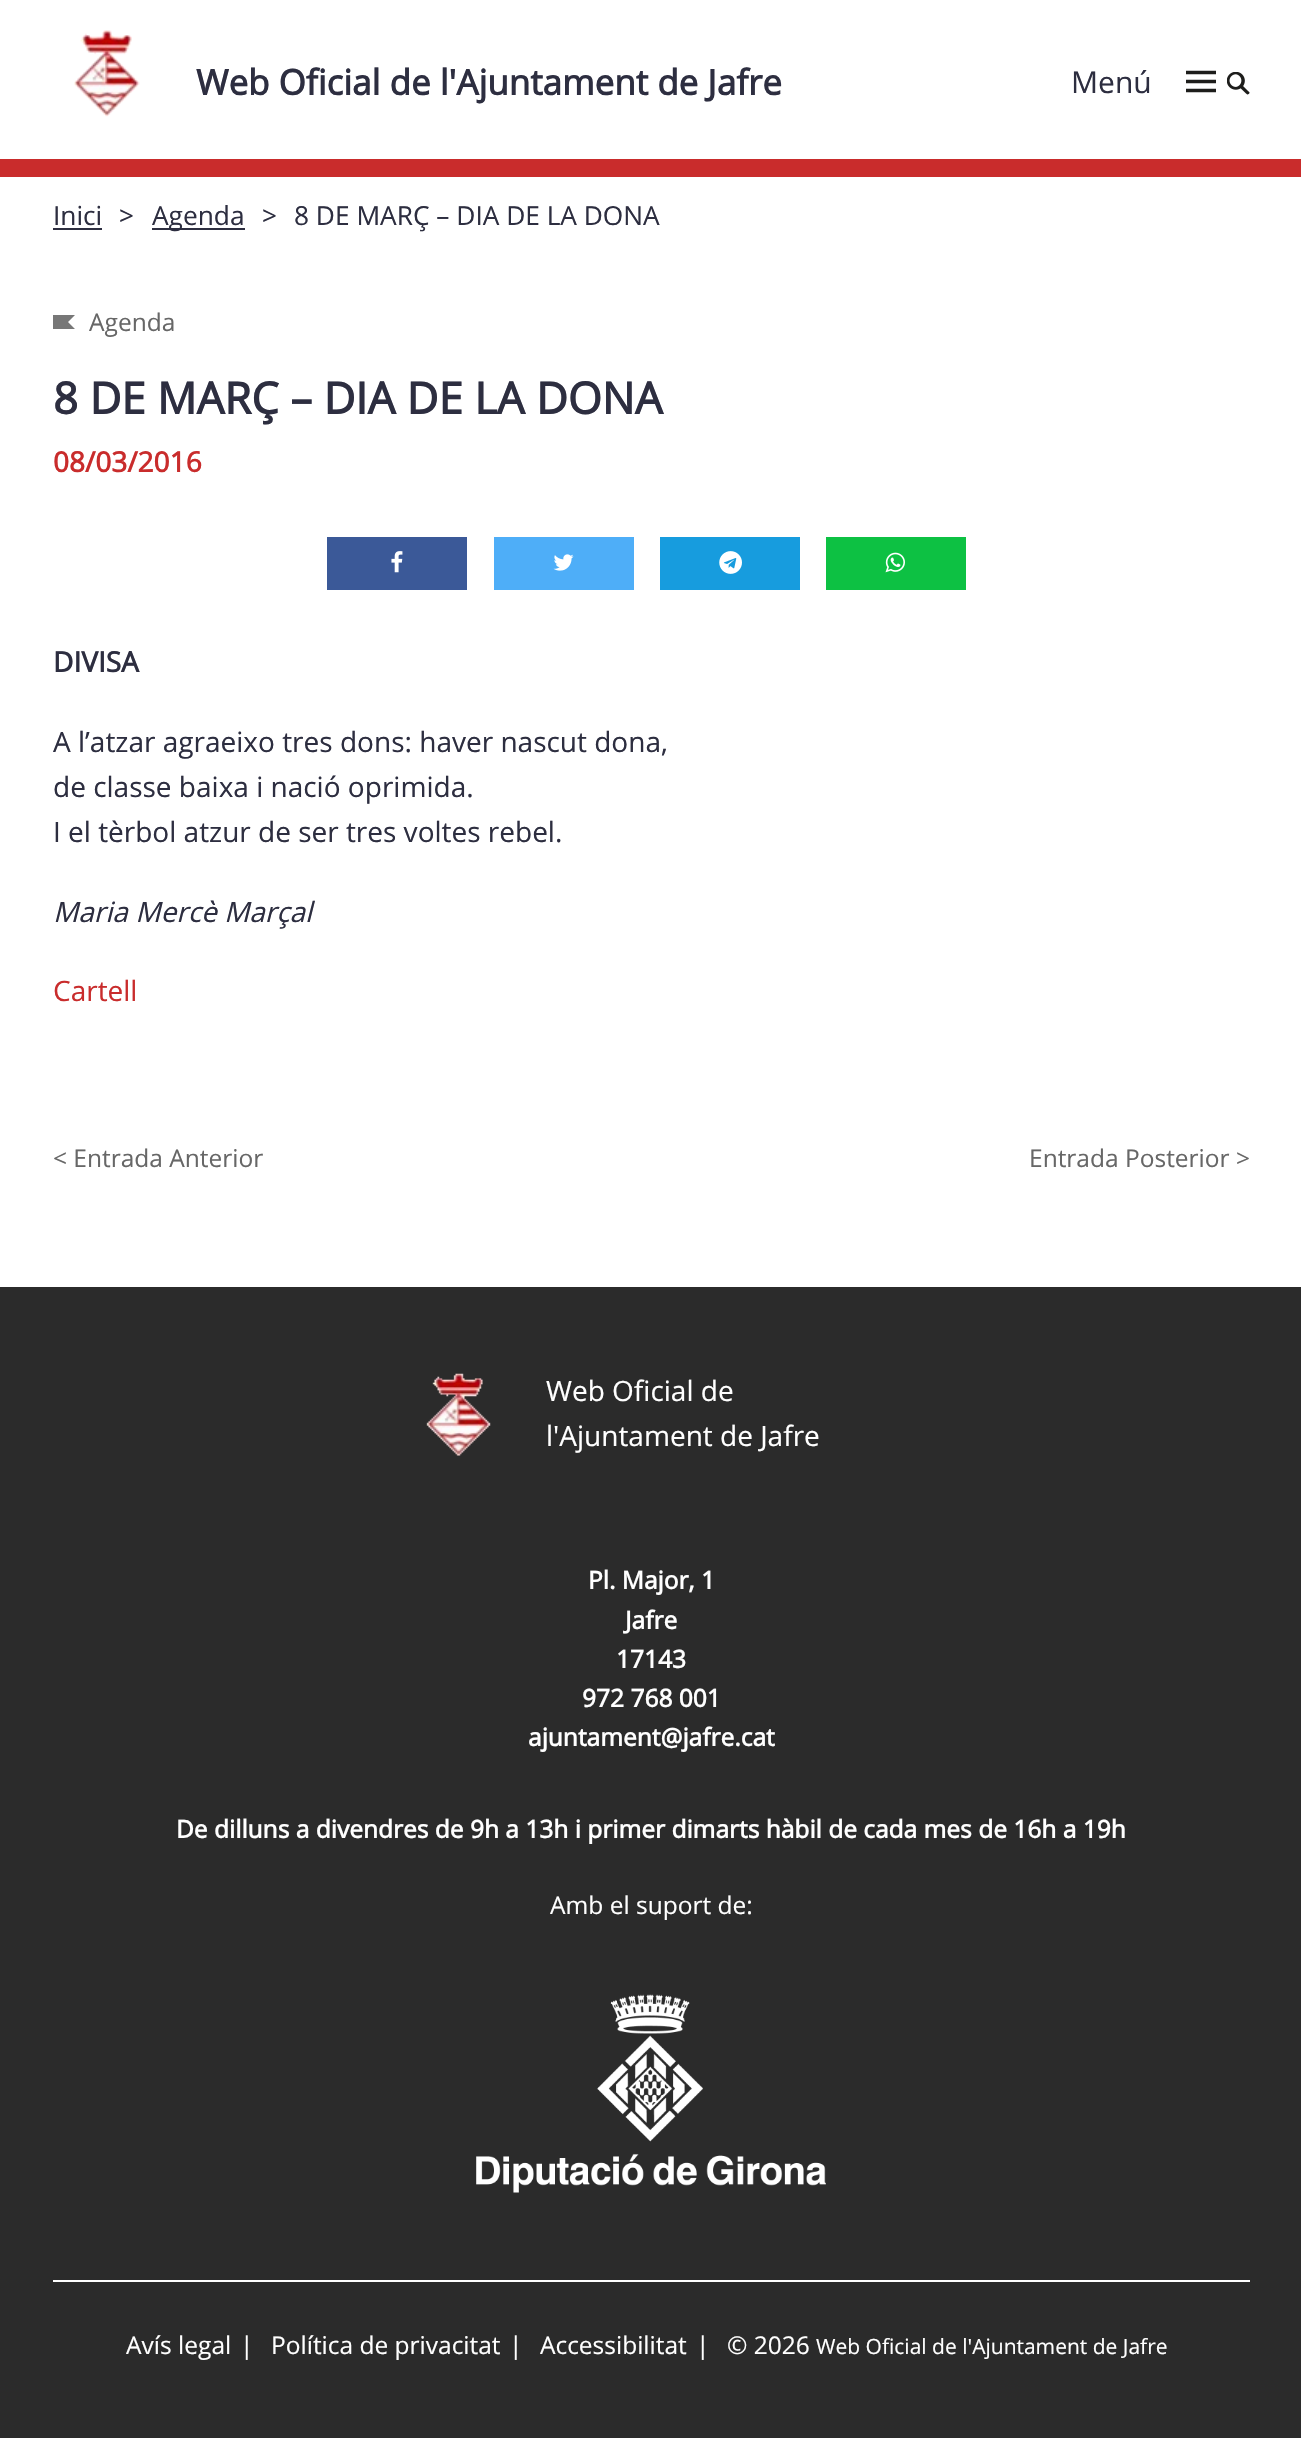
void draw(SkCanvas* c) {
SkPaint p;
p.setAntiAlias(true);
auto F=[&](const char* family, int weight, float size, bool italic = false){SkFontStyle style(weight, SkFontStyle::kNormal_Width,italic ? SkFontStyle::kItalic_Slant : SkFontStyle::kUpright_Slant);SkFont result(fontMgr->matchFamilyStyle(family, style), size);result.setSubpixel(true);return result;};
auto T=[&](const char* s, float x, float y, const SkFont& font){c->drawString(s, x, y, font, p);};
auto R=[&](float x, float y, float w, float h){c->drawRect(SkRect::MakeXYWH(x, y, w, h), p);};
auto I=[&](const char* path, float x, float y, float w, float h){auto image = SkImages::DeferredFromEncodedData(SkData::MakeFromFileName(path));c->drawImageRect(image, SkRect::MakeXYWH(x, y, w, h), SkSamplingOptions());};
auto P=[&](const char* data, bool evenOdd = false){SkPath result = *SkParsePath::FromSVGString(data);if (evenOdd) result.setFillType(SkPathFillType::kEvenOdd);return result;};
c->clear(0xffffffff);
p.setColor(0xffc92c2c);
R(0,159,1301,18);
I("1.png",74,30,66,87);
auto f1 = F("Open Sans",700,35);
p.setColor(0xff2d2e40);
T("Web Oficial de l'Ajuntament de Jafre",196,95,f1);
auto f2 = F("Open Sans",400,30);
T("Menú",1071,93,f2);
p.setStroke(true);
p.setStrokeWidth(3.5);
p.setColor(0xff1d1d1b);
c->drawPath(P("M1186 72.5h30m-30 9h30m-30 9h30"),p);
I("2.png",1227,72,23,23);
auto f3 = F("Open Sans",400,26.25);
p.setStroke(false);
p.setColor(0xff2d2e40);
T("Inici",53,225,f3);
R(53,228,49,2);
auto f4 = F("Open Sans",400,26);
T(">",119,225,f4);
R(152,228,93,2);
T("Agenda",152,225,f3);
T(">",262,225,f4);
T("8 DE MARÇ – DIA DE LA DONA",294,225,f3);
c->save();
c->clipRect(SkRect::MakeXYWH(53,315,22,14));
p.setColor(0xff777777);
c->drawPath(P("M52.5 329v-14h22.5l-7 7l7 7z",true),p);
c->restore();
auto f5 = F("Open Sans",400,24.5);
p.setColor(0xff676767);
T("Agenda",89,331,f5);
auto f6 = F("Open Sans",700,43.75);
p.setColor(0xff2d2e40);
T("8 DE MARÇ – DIA DE LA DONA",53,414,f6);
auto f7 = F("Open Sans",700,28);
p.setColor(0xffc92c2c);
T("08/03/2016",53,472,f7);
p.setColor(0xff3b5998);
R(327,537,140,53);
I("3.png",391,551,12,22);
p.setColor(0xff4eaef8);
R(494,537,140,53);
I("4.png",553,554,21,17);
p.setColor(0xff179cde);
R(660,537,140,53);
I("5.png",719,551,23,23);
p.setColor(0xff0dc143);
R(826,537,140,53);
I("6.png",885,552,20,21);
p.setColor(0xff2d2e40);
T("DIVISA",53,672,f7);
auto f8 = F("Open Sans",400,28);
T("A l’atzar agraeixo tres dons: haver nascut dona,",53,752,f8);
T("de classe baixa i nació oprimida.",53,797,f8);
T("I el tèrbol atzur de ser tres voltes rebel.",53,842,f8);
auto f9 = F("Open Sans",400,28,true);
T("Maria Mercè Marçal",53,922,f9);
p.setColor(0xffc92c2c);
T("Cartell",53,1001,f8);
p.setColor(0xff676767);
T("< Entrada Anterior",53,1167,f5);
T("Entrada Posterior >",1029,1167,f5);
p.setColor(0xff2b2b2b);
R(0,1287,1301,1151);
I("7.png",426,1373,65,83);
p.setColor(0xffffffff);
T("Web Oficial de",546,1401,f8);
T("l'Ajuntament de Jafre",546,1446,f8);
auto f10 = F("Open Sans",700,24.5);
T("Pl. Major, 1",588,1589,f10);
T("Jafre",625,1629,f10);
T("17143",616,1668,f10);
T("972 768 001",582,1707,f10);
T("ajuntament@jafre.cat",528,1746,f10);
T("De dilluns a divendres de 9h a 13h i primer dimarts hàbil de cada mes de 16h a 19h",176,1838,f10);
T("Amb el suport de:",550,1914,f5);
I("8.png",476,1994,350,199);
R(53,2280,1197,2);
T("Avís legal",126,2354,f5);
T("|",240,2354,f5);
T("Política de privacitat",271,2354,f5);
T("|",509,2354,f5);
T("Accessibilitat",540,2354,f5);
T("|",696,2354,f5);
T("© 2026",727,2354,f5);
auto f11 = F("Open Sans",400,21);
T("Web Oficial de l'Ajuntament de Jafre",816,2354,f11);
}
